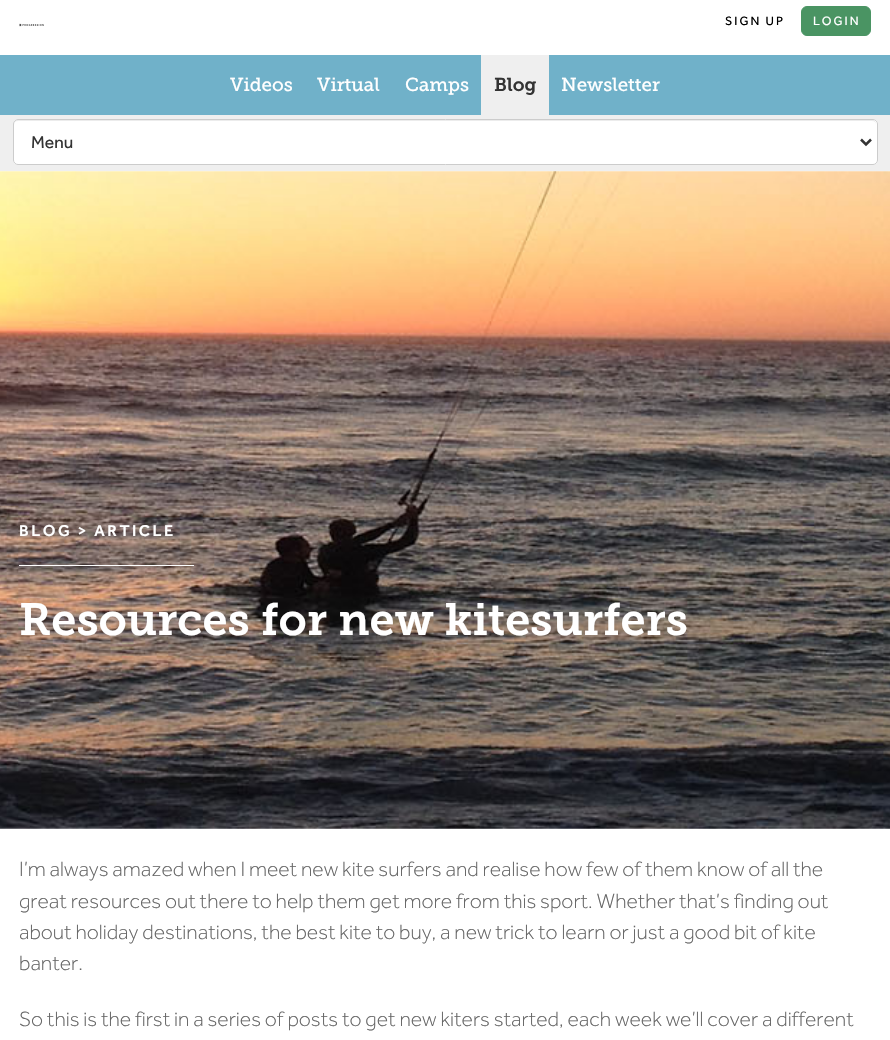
void draw(SkCanvas* c) {
SkPaint p;
p.setAntiAlias(true);
auto F=[&](const char* family, int weight, float size, bool italic = false){SkFontStyle style(weight, SkFontStyle::kNormal_Width,italic ? SkFontStyle::kItalic_Slant : SkFontStyle::kUpright_Slant);SkFont result(fontMgr->matchFamilyStyle(family, style), size);result.setSubpixel(true);return result;};
auto T=[&](const char* s, float x, float y, const SkFont& font){c->drawString(s, x, y, font, p);};
auto L=[&](const char* s, float x, float y, const SkFont& font, const SkPaint& ink, float letter, float word){std::vector<SkGlyphID> glyphs(font.countText(s, strlen(s), SkTextEncoding::kUTF8));std::vector<float> xs(glyphs.size());font.textToGlyphs(s, strlen(s), SkTextEncoding::kUTF8, glyphs);font.getXPos(glyphs, xs, x);float extra = 0;for (size_t i = 0; i < glyphs.size(); i++) {xs[i] += extra;extra += letter + word * (glyphs[i] == font.unicharToGlyph(' '));}c->drawTextBlob(SkTextBlob::MakeFromPosHGlyphs(glyphs, xs, y, font), 0, 0, ink);};
auto R=[&](float x, float y, float w, float h){c->drawRect(SkRect::MakeXYWH(x, y, w, h), p);};
auto Q=[&](float x, float y, float w, float h, float radius){c->drawRoundRect(SkRect::MakeXYWH(x, y, w, h), radius, radius, p);};
auto I=[&](const char* path, float x, float y, float w, float h){auto image = SkImages::DeferredFromEncodedData(SkData::MakeFromFileName(path));c->drawImageRect(image, SkRect::MakeXYWH(x, y, w, h), SkSamplingOptions());};
auto P=[&](const char* data, bool evenOdd = false){SkPath result = *SkParsePath::FromSVGString(data);if (evenOdd) result.setFillType(SkPathFillType::kEvenOdd);return result;};
c->clear(0xffffffff);
I("1.png",19,23,25,4);
auto f1 = F("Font",400,12.5);
p.setColor(0xff000000);
L("SIGN UP",725,25,f1,p,2,0);
p.setColor(0xff4a9463);
c->drawRoundRect(SkRect::MakeXYWH(801.5,6.5,69,29),5.5,5.5,p);
p.setStroke(true);
p.setStrokeWidth(1);
c->drawRoundRect(SkRect::MakeXYWH(801.5,6.5,69,29),5.5,5.5,p);
p.setStroke(false);
p.setColor(0xffffffff);
L("LOGIN",813,25,f1,p,2,0);
p.setColor(0xff70b1c9);
R(0,55,890,60);
auto f2 = F("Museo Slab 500",400,18.75);
p.setColor(0xffffffff);
T("Videos",230,91,f2);
T("Virtual",317,91,f2);
T("Camps",405,91,f2);
p.setColor(0xffefefef);
R(481,55,68,60);
auto f3 = F("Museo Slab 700",600,18.75);
p.setColor(0xff333333);
T("Blog",494,91,f3);
p.setColor(0xffffffff);
T("Newsletter",561,91,f2);
p.setColor(0xffefefef);
R(0,115,890,56);
p.setColor(0xffffffff);
Q(13,119,865,46,5);
p.setColor(0xffececec);
c->drawPath(P("M18 121h854c3 0 4 2 4 4c0-3-1-5-4-5h-854c-3 0-4 2-4 5c0-2 1-4 4-4z"),p);
p.setStroke(true);
p.setColor(0xffcccccc);
c->drawRoundRect(SkRect::MakeXYWH(13.5,119.5,864,45),4.5,4.5,p);
p.setStrokeWidth(2.5);
p.setColor(0xff333333);
c->drawPath(P("M861 139.5l5 5l5-5"),p);
auto f4 = F("Font",400,17.5);
p.setStroke(false);
T("Menu",31,148,f4);
I("2.png",0,171,890,658);
auto f5 = F("Font",500,16.25);
p.setColor(0xffffffff);
L("BLOG > ARTICLE",19,536,f5,p,2.5,0);
R(19,565,175,1);
auto f6 = F("Museo Slab 700",600,45);
T("Resources for new kitesurfers",19,635,f6);
auto f7 = F("Font",300,21.25);
p.setColor(0xff666666);
T("I’m always amazed when I meet new kite surfers and realise how few of them know of all the",19,876,f7);
T("great resources out there to help them get more from this sport. Whether that’s finding out",19,908,f7);
T("about holiday destinations, the best kite to buy, a new trick to learn or just a good bit of kite",19,939,f7);
T("banter.",19,970,f7);
T("So this is the first in a series of posts to get new kiters started, each week we’ll cover a different",19,1026,f7);
}
